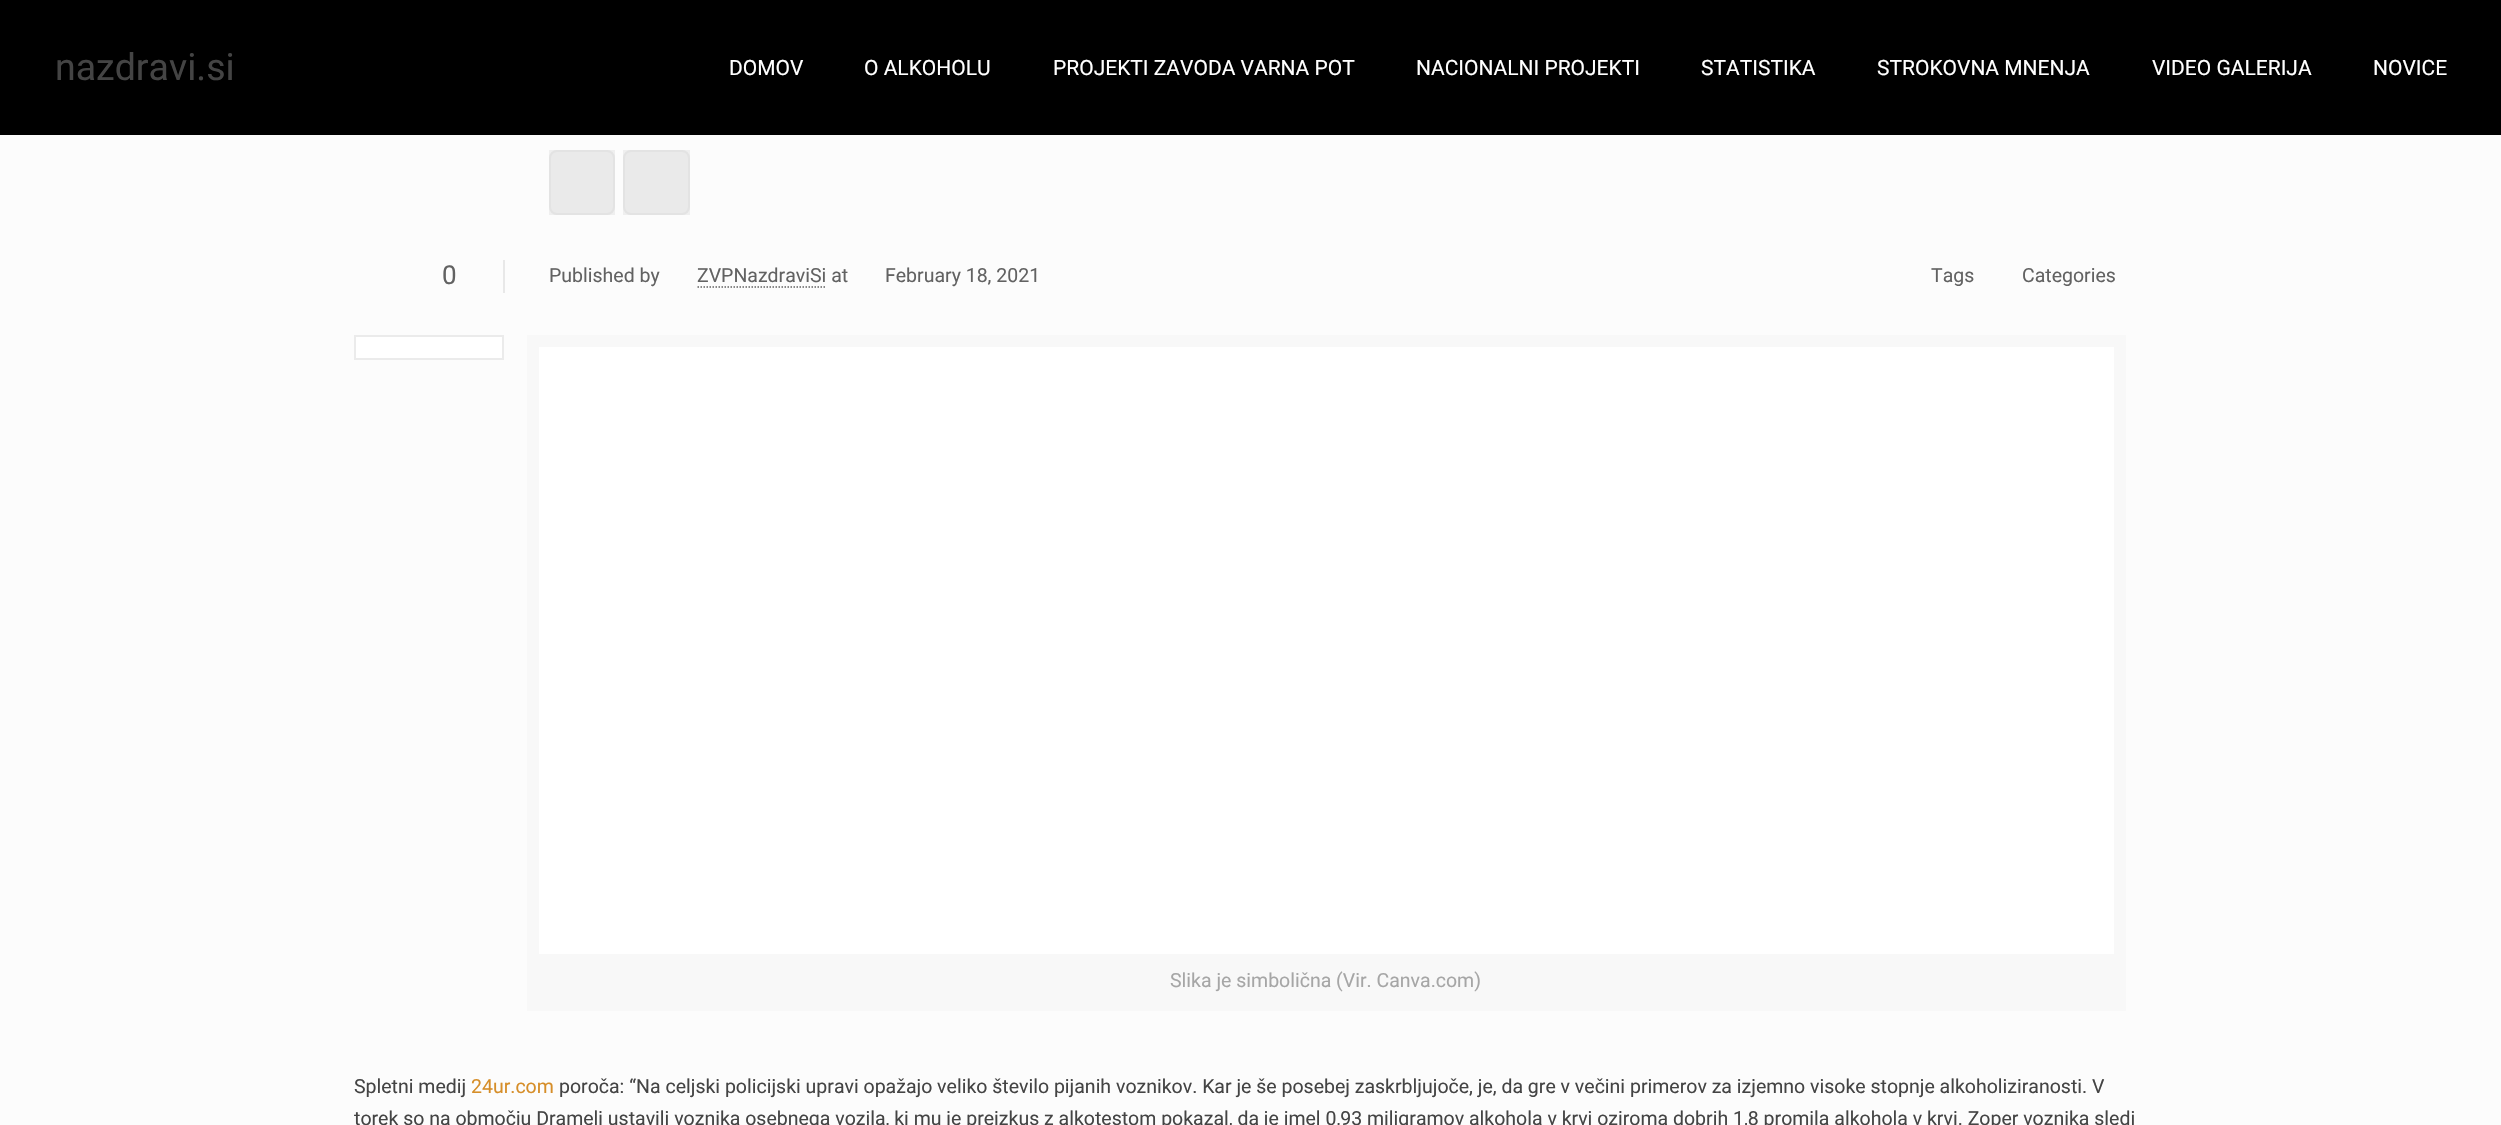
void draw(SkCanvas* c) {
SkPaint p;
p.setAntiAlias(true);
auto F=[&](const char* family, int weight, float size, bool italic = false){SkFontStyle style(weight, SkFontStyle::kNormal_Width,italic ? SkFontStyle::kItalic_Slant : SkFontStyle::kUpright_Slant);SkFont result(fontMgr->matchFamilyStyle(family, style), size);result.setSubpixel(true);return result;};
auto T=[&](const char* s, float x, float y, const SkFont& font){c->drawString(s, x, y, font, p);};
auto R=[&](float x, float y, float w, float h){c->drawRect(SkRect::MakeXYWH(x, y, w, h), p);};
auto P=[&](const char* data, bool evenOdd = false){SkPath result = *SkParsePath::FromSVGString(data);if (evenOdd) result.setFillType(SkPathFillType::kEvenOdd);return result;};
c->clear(0xfffcfcfc);
p.setColor(0xff000000);
R(0,0,2501,135);
auto f1 = F("Roboto",400,37.5);
p.setColor(0xff444444);
T("nazdravi.si",55,80,f1);
auto f2 = F("Roboto",400,21);
p.setColor(0xffffffff);
T("DOMOV",729,75,f2);
T("O ALKOHOLU",864,75,f2);
T("PROJEKTI ZAVODA VARNA POT",1053,75,f2);
T("NACIONALNI PROJEKTI",1416,75,f2);
T("STATISTIKA",1701,75,f2);
T("STROKOVNA MNENJA",1877,75,f2);
T("VIDEO GALERIJA",2152,75,f2);
T("NOVICE",2373,75,f2);
p.setColor(0xfff7f7f7);
c->drawRoundRect(SkRect::MakeXYWH(550,151,64,63),7,7,p);
p.setStroke(true);
p.setStrokeWidth(2);
p.setColor(0xfff0f0f0);
c->drawRoundRect(SkRect::MakeXYWH(550,151,64,63),7,7,p);
p.setStroke(false);
p.setColor(0x0d000000);
R(549,150,66,65);
p.setColor(0xfff7f7f7);
c->drawRoundRect(SkRect::MakeXYWH(624,151,65,63),7,7,p);
p.setStroke(true);
p.setColor(0xfff0f0f0);
c->drawRoundRect(SkRect::MakeXYWH(624,151,65,63),7,7,p);
p.setStroke(false);
p.setColor(0x0d000000);
R(623,150,67,65);
auto f3 = F("Roboto",400,26);
p.setColor(0xff626262);
T("0",442,284,f3);
p.setColor(0xffe8e8e8);
R(503,260,2,33);
auto f4 = F("Roboto",400,19.5);
p.setColor(0xff626262);
T("Published by",549,282,f4);
T("ZVPNazdraviSi at",697,282,f4);
p.setStroke(true);
p.setStrokeWidth(1.5);
p.setPathEffect(SkDashPathEffect::Make({{1.5f,1.5f}}, 0));
c->drawPath(P("M697.5 287h129"),p);
p.setPathEffect(nullptr);
p.setStroke(false);
T("February 18, 2021",885,282,f4);
T("Tags",1931,282,f4);
T("Categories",2022,282,f4);
p.setColor(0xffffffff);
c->drawRect(SkRect::MakeXYWH(355,336,148,23),p);
p.setStroke(true);
p.setStrokeWidth(2);
p.setColor(0xffebebeb);
c->drawRect(SkRect::MakeXYWH(355,336,148,23),p);
p.setStrokeWidth(12);
p.setColor(0xfff8f8f8);
c->drawRect(SkRect::MakeXYWH(533,341,1587,664),p);
p.setStroke(false);
p.setColor(0xffffffff);
R(539,347,1575,607);
p.setColor(0xfff8f8f8);
R(539,954,1575,45);
p.setColor(0xffa6a6a6);
T("Slika je simbolična (Vir. Canva.com)",1170,987,f4);
p.setColor(0xff444444);
T("Spletni medij",354,1093,f4);
p.setColor(0xffd68e29);
T("24ur.com",471,1093,f4);
p.setColor(0xff444444);
T("poroča: “Na celjski policijski upravi opažajo veliko število pijanih voznikov. Kar je še posebej zaskrbljujoče, je, da gre v večini primerov za izjemno visoke stopnje alkoholiziranosti. V",559,1093,f4);
T("torek so na območju Dramelj ustavili voznika osebnega vozila, ki mu je preizkus z alkotestom pokazal, da je imel 0,93 miligramov alkohola v krvi oziroma dobrih 1,8 promila alkohola v krvi. Zoper voznika sledi",354,1125,f4);
}
